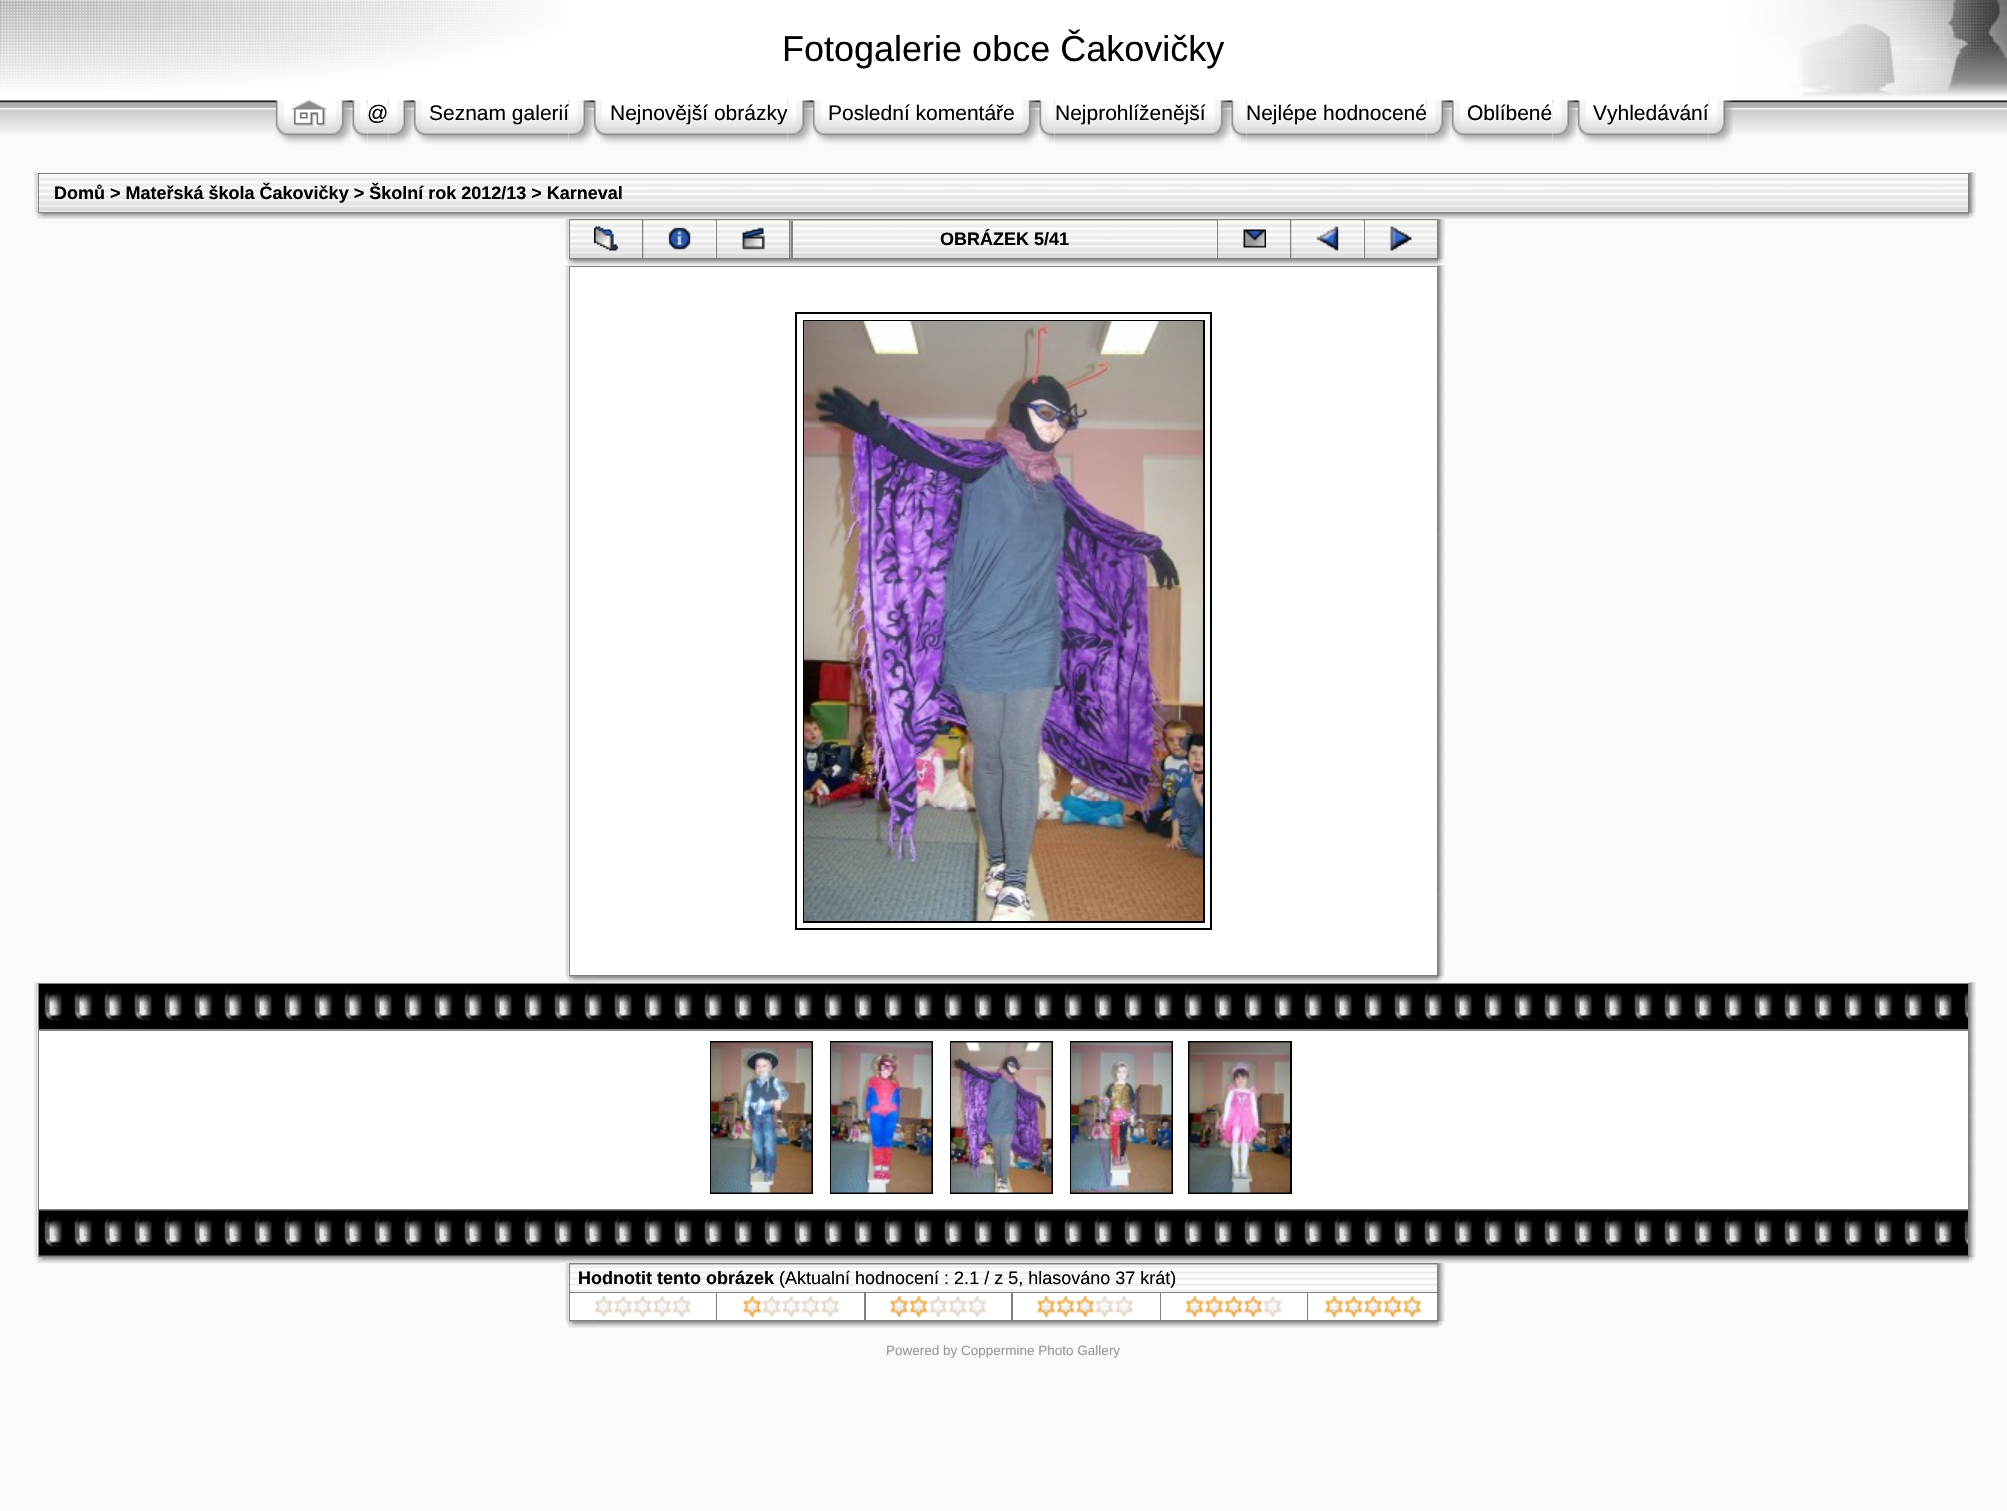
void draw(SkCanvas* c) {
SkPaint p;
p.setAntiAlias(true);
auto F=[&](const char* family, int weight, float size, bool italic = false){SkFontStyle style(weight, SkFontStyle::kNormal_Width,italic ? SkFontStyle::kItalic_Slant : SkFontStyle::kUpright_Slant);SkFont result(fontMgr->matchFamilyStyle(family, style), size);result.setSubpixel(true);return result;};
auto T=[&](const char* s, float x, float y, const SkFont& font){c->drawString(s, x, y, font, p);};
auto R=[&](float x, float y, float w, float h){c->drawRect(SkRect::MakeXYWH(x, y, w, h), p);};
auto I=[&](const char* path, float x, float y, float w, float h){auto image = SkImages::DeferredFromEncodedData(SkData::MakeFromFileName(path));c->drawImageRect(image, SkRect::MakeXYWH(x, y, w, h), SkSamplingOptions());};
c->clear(0xfffafafa);
p.setColor(0xffffffff);
R(0,0,1707,98);
I("1.png",0,0,562,92);
auto f1 = F("Liberation Sans",400,36);
p.setColor(0xff000000);
T("Fotogalerie obce Čakovičky",782,61,f1);
I("2.png",1707,0,300,97);
I("3.png",0,98,2007,36);
I("4.png",275,100,16,44);
I("5.png",291,100,36,45);
I("6.png",291,100,36,26);
I("7.png",327,100,24,45);
I("9.png",367,100,22,45);
I("8.png",351,100,17,44);
auto f2 = F("Liberation Sans",400,21);
T("@",367,120,f2);
I("10.png",388,100,25,45);
I("11.png",412,100,17,44);
I("12.png",429,100,140,45);
I("10.png",568,100,25,45);
T("Seznam galerií",429,120,f2);
I("11.png",592,100,17,44);
I("13.png",609,100,179,45);
T("Nejnovější obrázky",610,120,f2);
I("14.png",787,100,25,45);
I("15.png",811,100,17,44);
I("16.png",828,100,186,45);
T("Poslední komentáře",828,120,f2);
I("17.png",1014,100,24,45);
I("18.png",1054,100,152,45);
I("8.png",1038,100,17,44);
T("Nejprohlíženější",1055,120,f2);
I("7.png",1206,100,24,45);
I("19.png",1246,100,181,45);
I("8.png",1230,100,17,44);
T("Nejlépe hodnocené",1246,120,f2);
I("10.png",1426,100,25,45);
I("11.png",1450,100,17,44);
I("20.png",1467,100,86,45);
T("Oblíbené",1467,120,f2);
I("14.png",1552,100,25,45);
I("15.png",1576,100,17,44);
I("21.png",1593,100,116,45);
I("14.png",1708,100,25,45);
T("Vyhledávání",1593,120,f2);
I("22.png",34,172,4,41);
I("23.png",34,172,4,16);
p.setColor(0xff7f7f7f);
R(38,173,1932,40);
p.setColor(0xffffffff);
R(39,174,1929,38);
I("24.png",39,175,1929,37);
auto f3 = F("Liberation Sans",700,18);
p.setColor(0xff000000);
T("Domů > Mateřská škola Čakovičky > Školní rok 2012/13 > Karneval",54,199,f3);
I("25.png",1969,172,7,41);
I("26.png",1969,172,7,15);
I("28.png",37,213,1933,6);
I("27.png",36,213,2,3);
I("29.png",38,213,6,5);
I("30.png",1969,213,6,5);
I("31.png",565,219,4,41);
I("32.png",565,219,4,15);
p.setColor(0xff7f7f7f);
R(569,219,870,41);
I("33.png",570,220,72,1);
I("34.png",570,220,72,38);
I("35.png",594,226,24,25);
I("36.png",643,220,73,38);
p.setColor(0xffffffff);
R(715,221,1,37);
I("37.png",643,220,73,38);
I("38.png",668,227,23,23);
I("33.png",717,220,72,1);
I("34.png",717,220,72,38);
I("39.png",742,227,23,23);
R(1216,221,1,37);
I("40.png",790,220,427,38);
p.setColor(0xff838383);
R(791,221,2,37);
p.setColor(0xff000000);
T("OBRÁZEK 5/41",940,245,f3);
I("33.png",1218,220,72,1);
I("34.png",1218,220,72,38);
I("41.png",1243,229,23,19);
I("42.png",1291,220,73,38);
p.setColor(0xffffffff);
R(1363,221,1,37);
I("43.png",1291,220,73,38);
I("44.png",1316,226,23,25);
I("33.png",1365,220,72,1);
I("34.png",1365,220,72,38);
I("45.png",1390,226,22,25);
I("46.png",1438,219,7,41);
I("47.png",1438,219,7,15);
I("48.png",568,259,871,7);
I("49.png",569,259,29,7);
I("50.png",1438,259,6,6);
I("51.png",567,260,2,3);
I("52.png",565,265,4,712);
I("53.png",565,265,4,16);
p.setColor(0xff7f7f7f);
R(569,266,870,711);
p.setColor(0xffffffff);
R(570,267,867,708);
p.setStroke(true);
p.setStrokeWidth(2);
p.setColor(0xff000000);
c->drawRect(SkRect::MakeXYWH(796,313,415,616),p);
c->drawRect(SkRect::MakeXYWH(804,321,400,601),p);
I("54.png",804,321,399,600);
I("55.png",1438,265,7,712);
I("56.png",1438,265,7,15);
I("48.png",568,976,871,7);
I("49.png",569,976,29,7);
I("50.png",1438,976,6,6);
I("51.png",567,977,2,3);
I("57.png",34,982,4,275);
I("23.png",34,982,4,16);
p.setStroke(false);
p.setColor(0xff7f7f7f);
R(38,983,1932,274);
I("58.png",39,984,1929,45);
p.setColor(0xffffffff);
R(39,1031,1929,178);
p.setStroke(true);
p.setColor(0xff000000);
c->drawRect(SkRect::MakeXYWH(711,1042,101,151),p);
c->drawRect(SkRect::MakeXYWH(831,1042,101,151),p);
c->drawRect(SkRect::MakeXYWH(951,1042,101,151),p);
c->drawRect(SkRect::MakeXYWH(1071,1042,101,151),p);
c->drawRect(SkRect::MakeXYWH(1189,1042,102,151),p);
I("59.png",711,1042,101,151);
I("60.png",831,1042,101,151);
I("61.png",951,1042,101,151);
I("62.png",1071,1042,101,151);
I("63.png",1189,1042,101,151);
I("64.png",39,1210,1929,46);
I("65.png",1969,982,7,275);
I("26.png",1969,982,7,15);
I("28.png",37,1257,1933,6);
I("27.png",36,1257,2,3);
I("29.png",38,1257,6,5);
I("30.png",1969,1257,6,5);
I("66.png",565,1263,4,59);
I("32.png",565,1263,4,15);
p.setStroke(false);
p.setColor(0xff7f7f7f);
R(569,1263,870,59);
p.setColor(0xffffffff);
R(570,1291,867,1);
I("67.png",570,1264,867,28);
p.setColor(0xff000000);
T("Hodnotit tento obrázek",578,1284,f3);
auto f4 = F("Liberation Sans",400,18);
T("(Aktualní hodnocení : 2.1 / z 5, hlasováno 37 krát)",779,1284,f4);
p.setColor(0xffffffff);
R(570,1293,146,27);
I("68.png",594,1296,98,21);
R(717,1293,147,27);
I("69.png",742,1296,98,21);
R(866,1293,145,27);
I("70.png",889,1296,98,21);
R(1013,1293,147,27);
I("71.png",1036,1296,98,21);
R(1161,1293,146,27);
I("72.png",1185,1296,98,21);
R(1308,1293,129,27);
I("73.png",1324,1296,98,21);
I("74.png",1438,1263,7,59);
I("47.png",1438,1263,7,15);
I("48.png",568,1321,871,7);
I("49.png",569,1321,29,7);
I("50.png",1438,1321,6,6);
I("51.png",567,1322,2,3);
auto f5 = F("Liberation Sans",400,13.5);
p.setColor(0xff999999);
T("Powered by Coppermine Photo Gallery",886,1355,f5);
}
